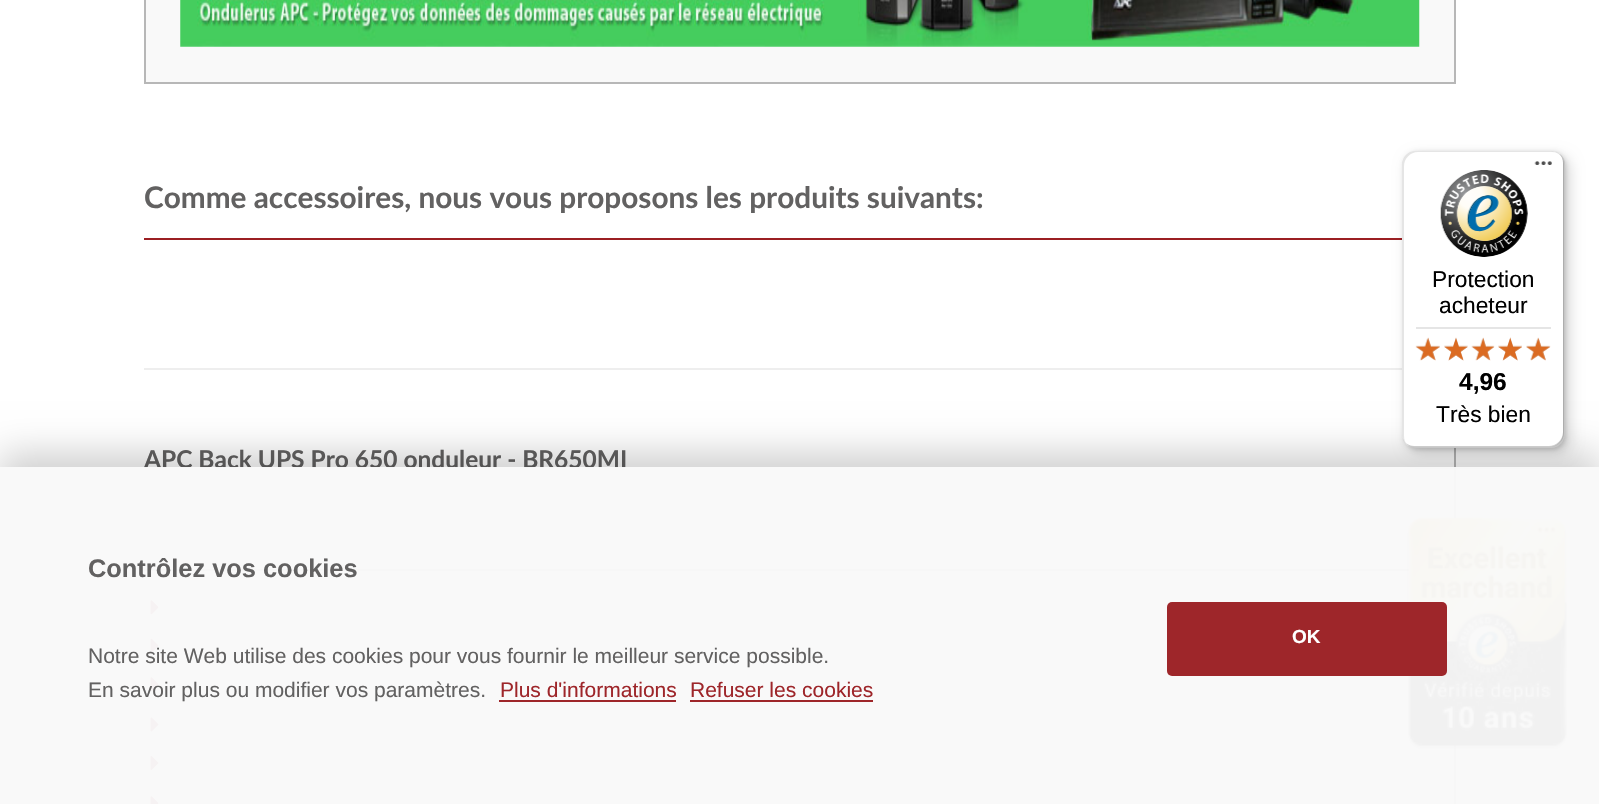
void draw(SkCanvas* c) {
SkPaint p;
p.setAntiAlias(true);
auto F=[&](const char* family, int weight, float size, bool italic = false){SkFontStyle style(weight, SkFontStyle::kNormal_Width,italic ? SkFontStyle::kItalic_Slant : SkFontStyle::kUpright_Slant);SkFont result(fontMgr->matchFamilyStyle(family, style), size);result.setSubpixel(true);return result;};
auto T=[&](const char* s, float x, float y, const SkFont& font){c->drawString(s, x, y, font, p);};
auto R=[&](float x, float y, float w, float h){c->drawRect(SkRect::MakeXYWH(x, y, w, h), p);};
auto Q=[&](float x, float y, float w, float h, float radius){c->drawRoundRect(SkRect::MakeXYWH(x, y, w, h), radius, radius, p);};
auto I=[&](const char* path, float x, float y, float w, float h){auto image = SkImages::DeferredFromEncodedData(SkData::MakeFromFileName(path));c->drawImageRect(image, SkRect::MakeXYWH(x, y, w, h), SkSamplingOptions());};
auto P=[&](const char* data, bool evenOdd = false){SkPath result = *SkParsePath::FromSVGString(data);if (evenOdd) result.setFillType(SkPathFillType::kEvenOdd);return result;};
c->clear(0xffffffff);
p.setColor(0xfff9f9f9);
R(146,0,1308,82);
p.setColor(0xffb7b7b7);
R(1454,0,2,84);
R(144,82,1312,2);
R(144,0,2,84);
I("1.png",180,0,1240,47);
auto f1 = F("Lato",700,29.75);
p.setColor(0xff626161);
T("Comme accessoires, nous vous proposons les produits suivants:",144,208,f1);
p.setColor(0xff9b1f23);
R(144,238,1258,2);
p.setColor(0xffeeeeee);
R(144,368,1258,2);
p.setColor(0xffb7b7b7);
R(1454,448,2,356);
auto f2 = F("Lato",700,24.5);
p.setColor(0xff626161);
T("APC Back UPS Pro 650 onduleur - BR650MI",144,468,f2);
p.setColor(0xffb7b7b7);
R(144,569,1267,2);
I("2.png",150,600,9,15);
I("3.png",150,638,9,15);
I("2.png",150,677,9,15);
I("4.png",150,717,9,15);
I("5.png",150,756,9,14);
I("6.png",150,796,9,8);
I("19.png",1405,517,165,235);
c->save();
c->clipPath(P("M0 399h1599v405h-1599zm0 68h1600v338h-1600z",true),true);
p.setColor(0x30000000);
p.setMaskFilter(SkMaskFilter::MakeBlur(kNormal_SkBlurStyle, 17.5));
c->drawRect(SkRect::MakeXYWH(0,453,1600,338),p);
p.setMaskFilter(nullptr);
c->restore();
p.setColor(0xf7f9f9f9);
R(0,467,1599,337);
p.setColor(0x26000000);
p.setMaskFilter(SkMaskFilter::MakeBlur(kNormal_SkBlurStyle, 7));
c->drawRoundRect(SkRect::MakeXYWH(1407,156,163,297),14,14,p);
p.setMaskFilter(nullptr);
p.setMaskFilter(SkMaskFilter::MakeBlur(kNormal_SkBlurStyle, 2));
c->drawRoundRect(SkRect::MakeXYWH(1404,152,162,298),14,14,p);
p.setMaskFilter(nullptr);
p.setColor(0xffffffff);
Q(1402,151,163,297,14);
p.setColor(0x1a000000);
c->drawPath(P("M1418 152h134c4 0 8 2 10 5c-2-4-6-6-11-6h-135c-8 0-14 6-14 14v269c0 5 2 9 6 11c-3-2-4-6-4-9v-270c0-7 6-14 14-14z"),p);
p.setColor(0x33000000);
c->drawPath(P("M1406 443c2 3 6 5 10 5h135c8 0 14-6 14-14v-269c0-5-2-9-6-11c3 2 4 5 4 9v269c0 8-7 14-14 14h-135c-3 0-6-1-8-3z"),p);
p.setColor(0x33323232);
c->drawPath(P("M1407 444c2 3 5 4 9 4h135c8 0 14-6 14-14v-269c0-5-2-9-6-11c3 2 4 6 4 9v270c0 8-6 14-14 14h-134c-3 0-6-1-8-3z"),p);
p.setColor(0x4dffffff);
c->drawPath(P("M1407 444c2 3 5 4 9 4h135c8 0 14-6 14-14v-269c0-5-2-9-6-11c3 2 5 6 5 10v269c0 8-7 14-14 14h-135c-3 0-6-1-8-3z"),p);
I("7.png",1534,161,18,4);
I("8.png",1440,170,88,87);
auto f3 = F("Liberation Sans",400,22.75);
p.setColor(0xff000000);
T("Protection",1432,287,f3);
T("acheteur",1439,313,f3);
p.setColor(0xffe5e5e5);
R(1416,327,135,2);
I("14.png",1416,338,24,22);
I("9.png",1415,337,25,24);
I("15.png",1444,338,24,23);
I("10.png",1444,337,24,24);
I("16.png",1471,338,23,22);
I("11.png",1471,337,24,24);
I("17.png",1498,337,24,24);
I("12.png",1498,337,24,24);
I("18.png",1526,338,24,22);
I("13.png",1526,337,25,24);
auto f4 = F("Liberation Sans",700,24.5);
p.setColor(0xff000000);
T("4,96",1459,390,f4);
T("Très bien",1436,422,f3);
auto f5 = F("Liberation Sans",700,25.4);
p.setColor(0xff626161);
T("Contrôlez vos cookies",88,577,f5);
p.setColor(0xf79b1f23);
Q(1167,602,280,74,5);
auto f6 = F("Liberation Sans",700,19);
p.setColor(0xffffffff);
T("OK",1292,643,f6);
auto f7 = F("Liberation Sans",400,21);
p.setColor(0xff626161);
T("Notre site Web utilise des cookies pour vous fournir le meilleur service possible.",88,663,f7);
T("En savoir plus ou modifier vos paramètres.",88,697,f7);
p.setColor(0xff9e262a);
T("Plus d'informations",500,697,f7);
R(499,700,177,2);
T("Refuser les cookies",690,697,f7);
R(690,700,183,2);
}
